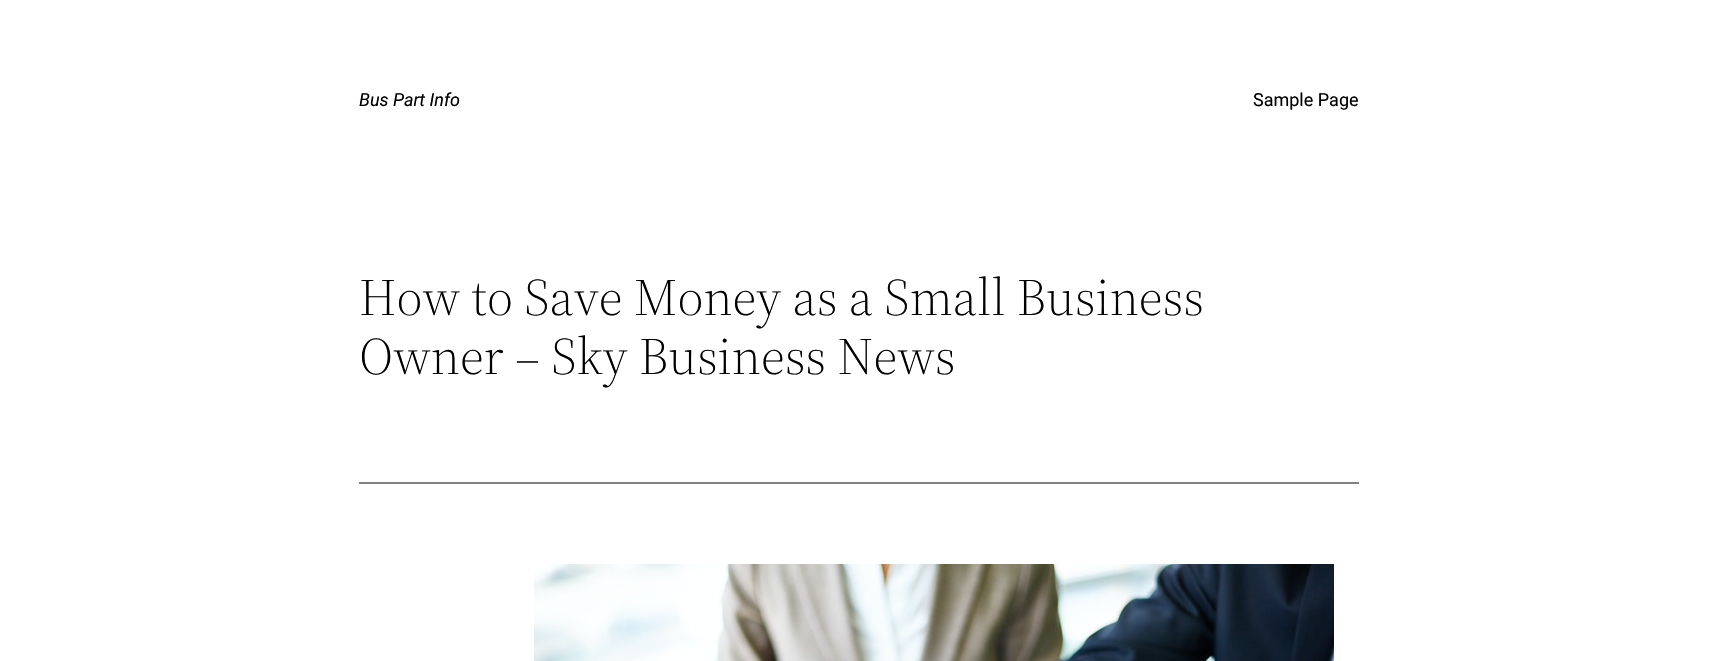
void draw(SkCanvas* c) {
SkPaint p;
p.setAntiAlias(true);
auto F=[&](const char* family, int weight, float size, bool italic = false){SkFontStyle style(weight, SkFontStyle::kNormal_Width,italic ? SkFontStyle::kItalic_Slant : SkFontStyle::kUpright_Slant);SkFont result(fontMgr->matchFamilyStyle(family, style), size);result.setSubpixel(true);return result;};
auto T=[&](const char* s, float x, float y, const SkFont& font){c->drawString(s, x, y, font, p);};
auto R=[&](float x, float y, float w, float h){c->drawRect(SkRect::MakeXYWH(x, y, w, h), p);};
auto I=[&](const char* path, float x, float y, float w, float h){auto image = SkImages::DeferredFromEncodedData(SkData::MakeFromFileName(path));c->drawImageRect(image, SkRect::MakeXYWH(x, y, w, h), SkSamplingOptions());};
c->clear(0xffffffff);
auto f1 = F("Roboto",400,18,true);
p.setColor(0xff000000);
T("Bus Part Info",359,106,f1);
auto f2 = F("Roboto",400,18);
T("Sample Page",1253,106,f2);
auto f3 = F("Source Serif 4",300,52);
T("How to Save Money as a Small Business",359,315,f3);
T("Owner – Sky Business News",359,374,f3);
p.setColor(0xff808080);
R(359,482,1000,2);
I("1.png",534,564,800,97);
}
